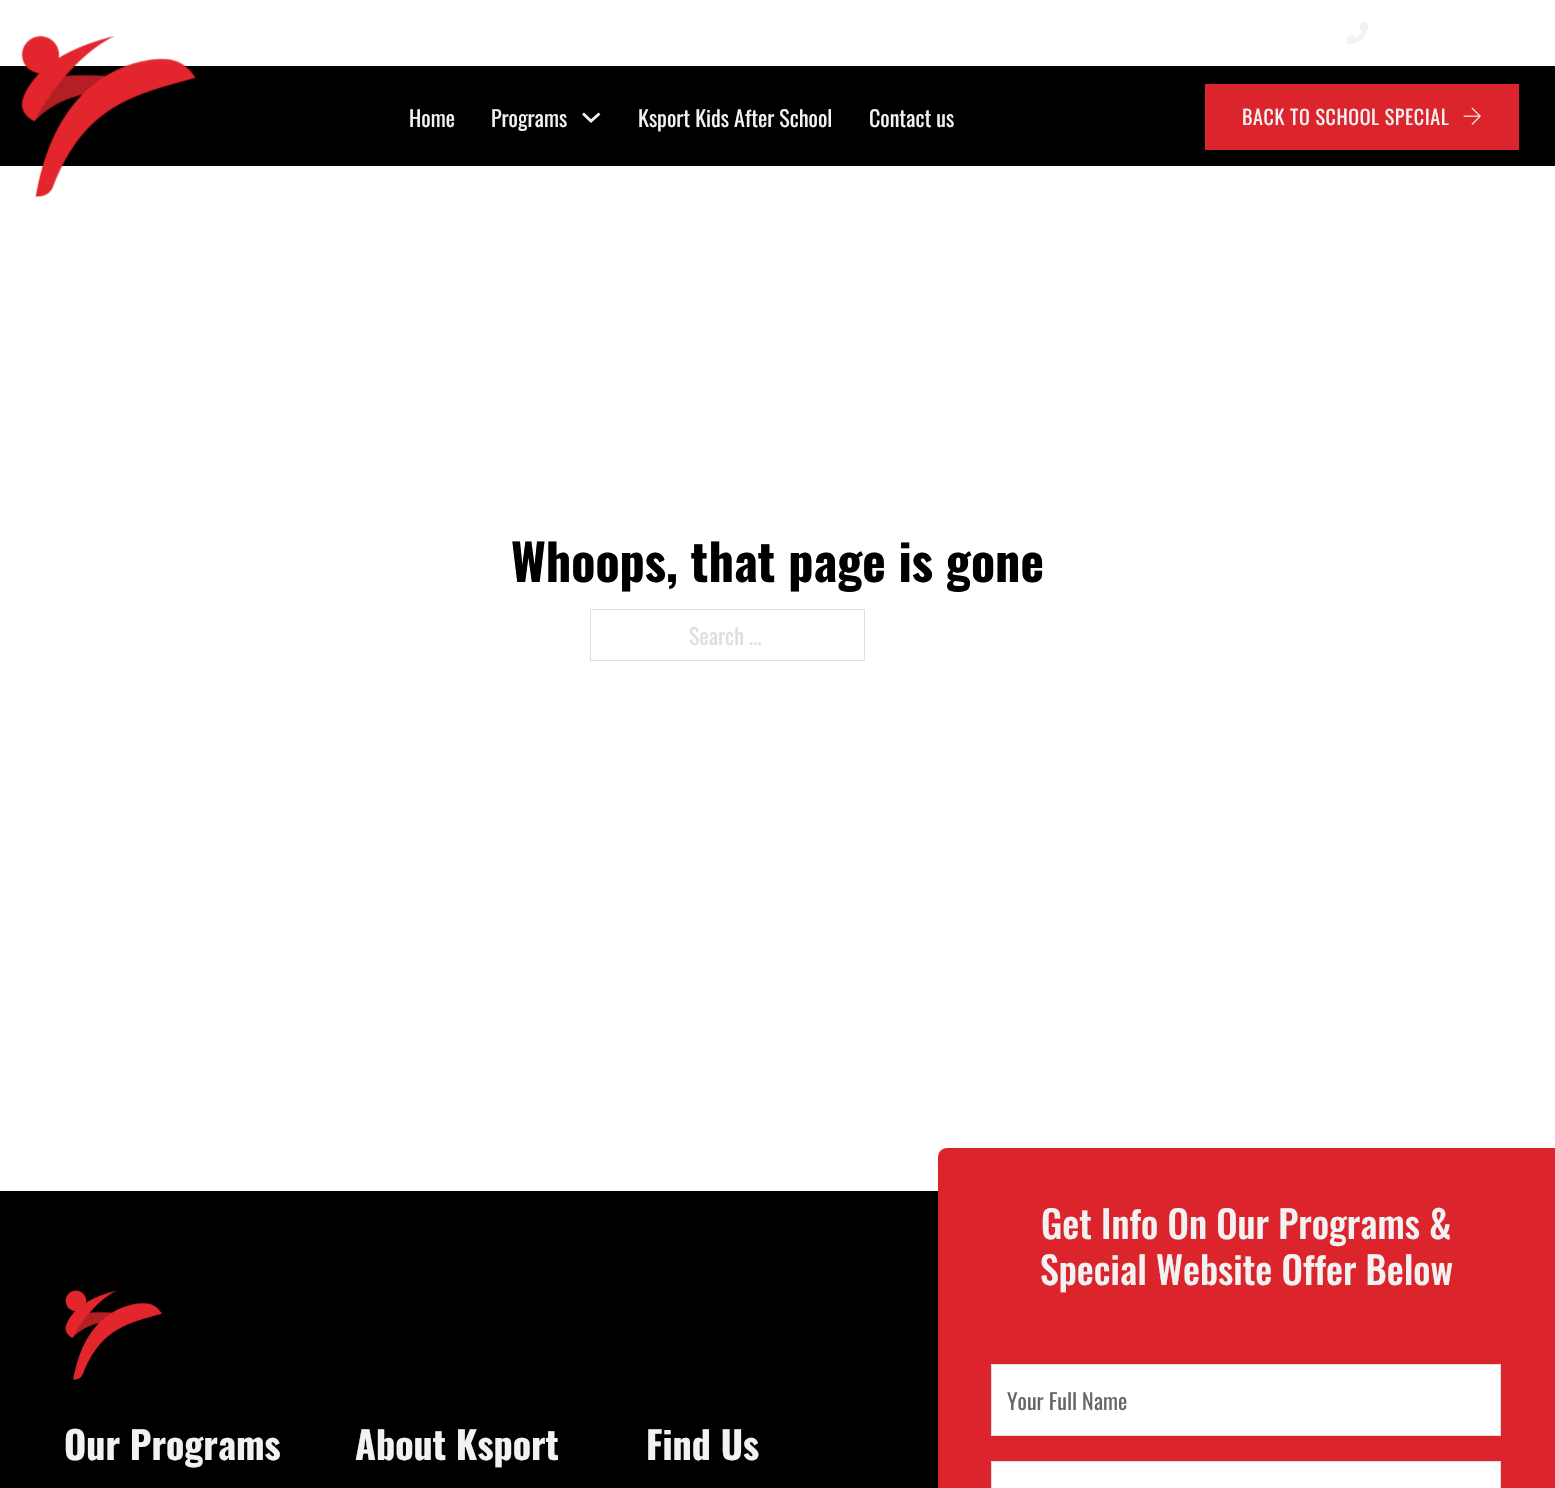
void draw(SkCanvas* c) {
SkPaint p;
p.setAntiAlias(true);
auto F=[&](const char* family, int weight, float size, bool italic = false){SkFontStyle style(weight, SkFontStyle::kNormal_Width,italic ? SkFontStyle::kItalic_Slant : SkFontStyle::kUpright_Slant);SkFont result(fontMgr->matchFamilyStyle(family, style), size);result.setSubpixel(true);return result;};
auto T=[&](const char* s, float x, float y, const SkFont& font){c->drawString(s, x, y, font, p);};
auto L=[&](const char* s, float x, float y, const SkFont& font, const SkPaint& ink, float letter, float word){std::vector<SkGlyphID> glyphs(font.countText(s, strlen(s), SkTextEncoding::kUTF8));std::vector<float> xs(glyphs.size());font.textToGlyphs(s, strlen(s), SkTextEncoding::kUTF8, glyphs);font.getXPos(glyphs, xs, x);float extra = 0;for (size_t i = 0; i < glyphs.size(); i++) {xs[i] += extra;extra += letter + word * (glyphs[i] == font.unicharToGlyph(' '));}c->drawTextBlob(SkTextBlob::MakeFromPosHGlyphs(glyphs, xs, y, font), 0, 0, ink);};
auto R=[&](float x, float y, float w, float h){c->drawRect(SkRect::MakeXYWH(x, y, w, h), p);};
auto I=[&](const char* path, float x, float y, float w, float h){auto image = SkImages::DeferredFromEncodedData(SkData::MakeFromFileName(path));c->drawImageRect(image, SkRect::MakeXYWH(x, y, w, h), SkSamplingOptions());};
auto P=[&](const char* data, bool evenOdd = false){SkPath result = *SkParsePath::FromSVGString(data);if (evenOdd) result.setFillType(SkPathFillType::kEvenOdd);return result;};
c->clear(0xffffffff);
I("1.png",1346,22,22,22);
p.setColor(0xff000000);
R(0,66,1555,100);
I("2.png",21,35,175,163);
auto f1 = F("Oswald",400,22);
p.setColor(0xfff2f2f2);
T("Home",409,127,f1);
T("Programs",491,127,f1);
p.setStroke(true);
p.setStrokeWidth(2.8);
c->drawPath(P("M583 113.5l8 7.5l8.5-7.5"),p);
p.setStroke(false);
T("Ksport Kids After School",638,127,f1);
T("Contact us",869,127,f1);
p.setColor(0xffdc242c);
R(1205,84,314,66);
auto f2 = F("Oswald",400,20);
p.setColor(0xfff2f2f2);
L("BACK TO SCHOOL SPECIAL",1242,125,f2,p,.6,0);
I("3.png",1463,107,18,18);
auto f3 = F("Oswald",700,50);
p.setColor(0xff000000);
T("Whoops, that page is gone",511,582,f3);
p.setStroke(true);
p.setStrokeWidth(1);
p.setColor(0xffdddedf);
c->drawRect(SkRect::MakeXYWH(590.5,609.5,274,51),p);
p.setStroke(false);
T("Search ...",689,645,f1);
p.setColor(0xff000000);
R(0,1191,938,297);
p.setColor(0xffdc242c);
c->drawPath(P("M947 1148h608v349h-617v-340c0-5 4-9 9-9z"),p);
auto f4 = F("Oswald",500,38);
p.setColor(0xfff2f2f2);
T("Get Info On Our Programs &",1041,1239,f4);
T("Special Website Offer Below",1040,1285,f4);
p.setColor(0xffffffff);
c->drawRect(SkRect::MakeXYWH(991.5,1364.5,509,71),p);
p.setStroke(true);
p.setColor(0xffdddedf);
c->drawRect(SkRect::MakeXYWH(991.5,1364.5,509,71),p);
p.setStroke(false);
p.setColor(0xff666666);
T("Your Full Name",1007,1410,f1);
p.setColor(0xffffffff);
c->drawRect(SkRect::MakeXYWH(991.5,1461.5,509,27),p);
p.setStroke(true);
p.setColor(0xffdddedf);
c->drawRect(SkRect::MakeXYWH(991.5,1461.5,509,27),p);
I("4.png",65,1290,98,90);
auto f5 = F("Oswald",700,38);
p.setStroke(false);
p.setColor(0xfff2f2f2);
T("Our Programs",64,1460,f5);
T("About Ksport",355,1460,f5);
T("Find Us",646,1460,f5);
}
